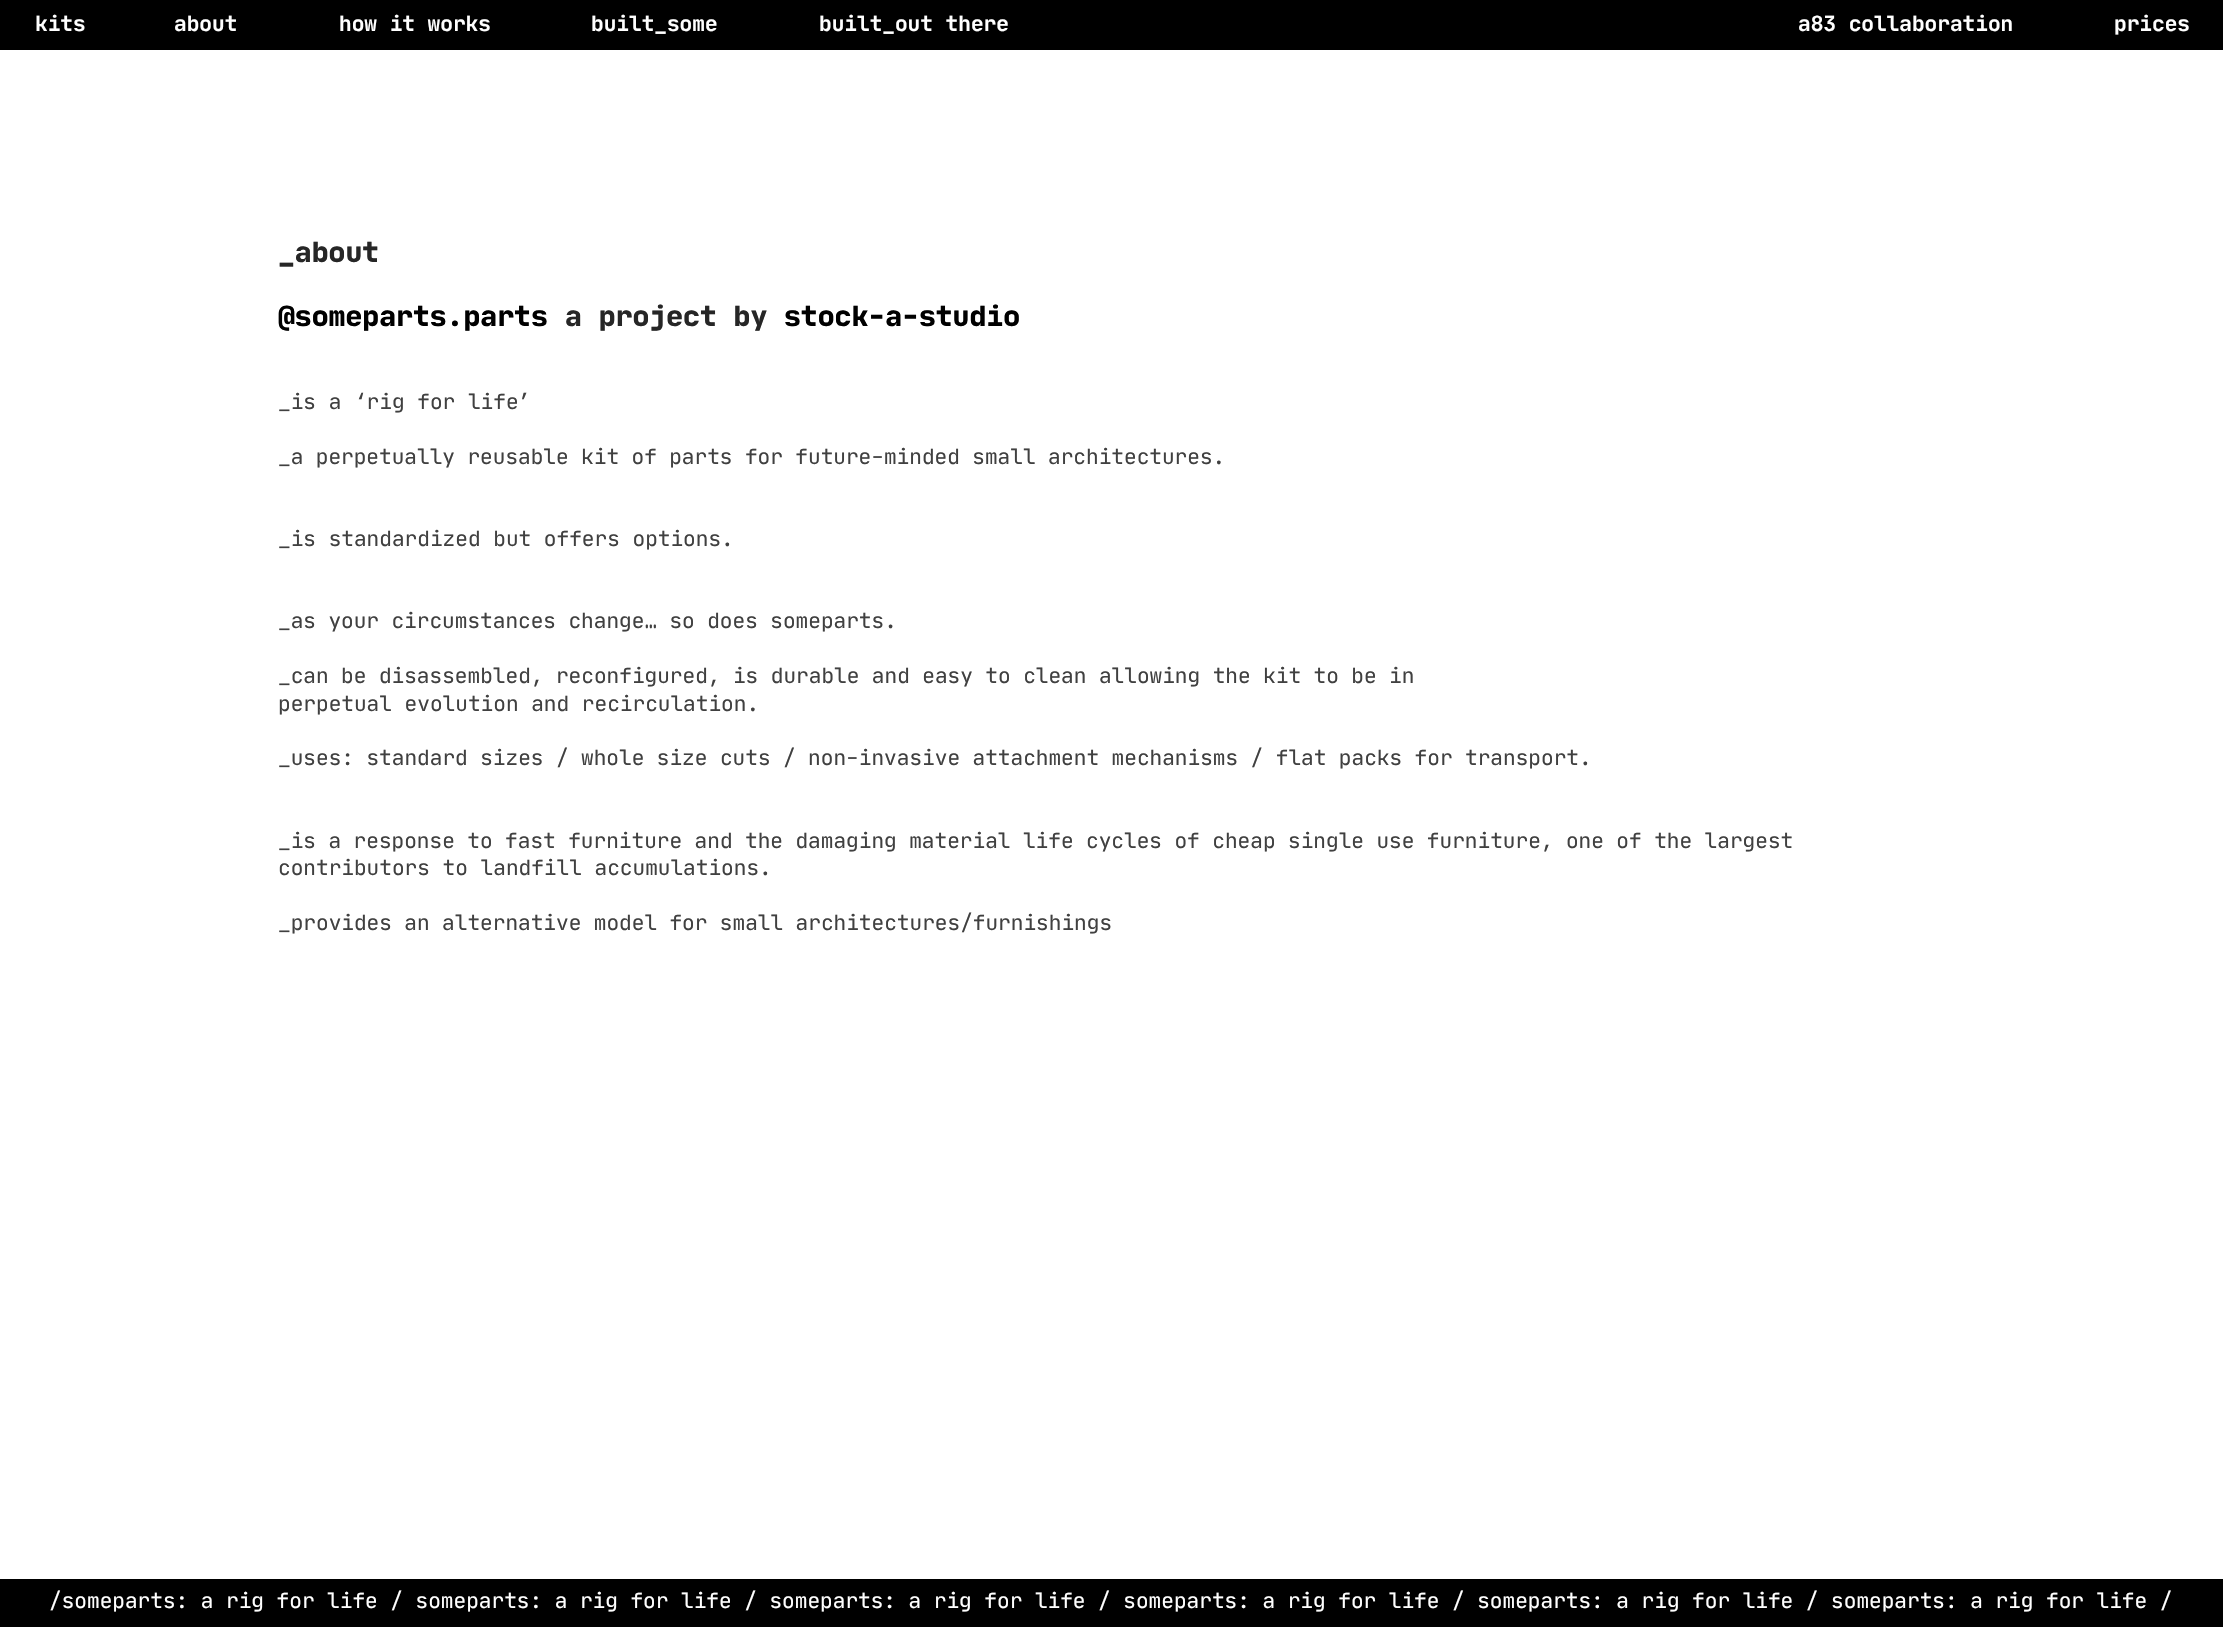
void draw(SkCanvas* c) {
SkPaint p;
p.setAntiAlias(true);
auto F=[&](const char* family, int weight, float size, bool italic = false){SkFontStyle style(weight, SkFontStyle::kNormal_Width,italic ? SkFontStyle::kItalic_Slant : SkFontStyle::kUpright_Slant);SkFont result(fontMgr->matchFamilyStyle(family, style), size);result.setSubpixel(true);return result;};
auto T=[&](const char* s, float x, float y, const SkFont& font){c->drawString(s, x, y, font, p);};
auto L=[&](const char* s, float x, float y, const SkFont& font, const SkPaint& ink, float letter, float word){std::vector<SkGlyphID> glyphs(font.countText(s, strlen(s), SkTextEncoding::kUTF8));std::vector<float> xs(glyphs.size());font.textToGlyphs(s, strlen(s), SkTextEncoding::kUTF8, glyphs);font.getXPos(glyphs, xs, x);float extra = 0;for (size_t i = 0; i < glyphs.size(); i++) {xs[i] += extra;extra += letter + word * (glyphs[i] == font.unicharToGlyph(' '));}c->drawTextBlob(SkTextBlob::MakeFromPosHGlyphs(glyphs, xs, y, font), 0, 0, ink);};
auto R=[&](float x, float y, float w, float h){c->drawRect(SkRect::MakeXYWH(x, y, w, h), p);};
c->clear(0xffffffff);
p.setColor(0xff000000);
R(0,0,2223,50);
auto f1 = F("JetBrains Mono",700,21.1);
p.setColor(0xffffffff);
T("kits",35,31,f1);
T("about",174,31,f1);
T("how it works",339,31,f1);
T("built_some",591,31,f1);
T("built_out there",819,31,f1);
T("a83 collaboration",1798,31,f1);
T("prices",2114,31,f1);
auto f2 = F("JetBrains Mono",800,28.1);
p.setColor(0xff262626);
T("_about",278,262,f2);
p.setColor(0xff000000);
T("@someparts.parts",278,326,f2);
p.setColor(0xff262626);
T("a project by",565,326,f2);
p.setColor(0xff000000);
T("stock-a-studio",784,326,f2);
auto f3 = F("JetBrains Mono",400,21.1);
p.setColor(0xff404040);
T("_is a ‘rig for life’",278,409,f3);
L("_a perpetually reusable kit of parts for future-minded small architectures.",278,464,f3,p,0,-.25);
T("_is standardized but offers options.",278,546,f3);
L("_as your circumstances change… so does someparts.",278,628,f3,p,0,-.25);
L("_can be disassembled, reconfigured, is durable and easy to clean allowing the kit to be in",278,683,f3,p,0,-.2);
T("perpetual evolution and recirculation.",278,711,f3);
L("_uses: standard sizes / whole size cuts / non-invasive attachment mechanisms / flat packs for transport.",278,765,f3,p,0,-.2);
L("_is a response to fast furniture and the damaging material life cycles of cheap single use furniture, one of the largest",278,848,f3,p,0,-.2);
T("contributors to landfill accumulations.",278,875,f3);
L("_provides an alternative model for small architectures/furnishings",278,930,f3,p,0,-.25);
p.setColor(0xff000000);
R(0,1579,2223,48);
p.setColor(0xffffffff);
L("/someparts: a rig for life / someparts: a rig for life / someparts: a rig for life / someparts: a rig for life / someparts: a rig for life / someparts: a rig for life /",49,1608,f3,p,0,-.1);
}
